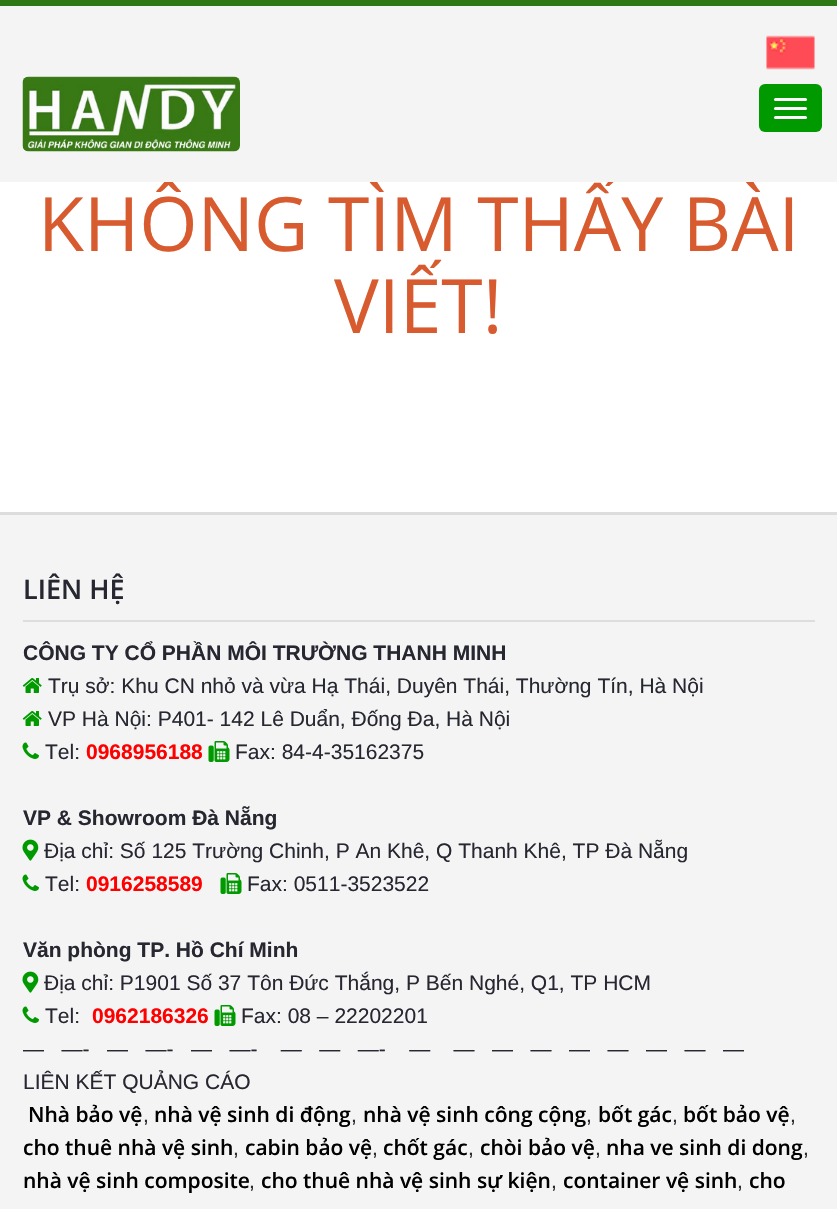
void draw(SkCanvas* c) {
SkPaint p;
p.setAntiAlias(true);
auto F=[&](const char* family, int weight, float size, bool italic = false){SkFontStyle style(weight, SkFontStyle::kNormal_Width,italic ? SkFontStyle::kItalic_Slant : SkFontStyle::kUpright_Slant);SkFont result(fontMgr->matchFamilyStyle(family, style), size);result.setSubpixel(true);return result;};
auto T=[&](const char* s, float x, float y, const SkFont& font){c->drawString(s, x, y, font, p);};
auto R=[&](float x, float y, float w, float h){c->drawRect(SkRect::MakeXYWH(x, y, w, h), p);};
auto Q=[&](float x, float y, float w, float h, float radius){c->drawRoundRect(SkRect::MakeXYWH(x, y, w, h), radius, radius, p);};
auto I=[&](const char* path, float x, float y, float w, float h){auto image = SkImages::DeferredFromEncodedData(SkData::MakeFromFileName(path));c->drawImageRect(image, SkRect::MakeXYWH(x, y, w, h), SkSamplingOptions());};
c->clear(0xffffffff);
auto f1 = F("Open Sans",400,75);
p.setColor(0xffd85b2f);
T("KHÔNG TÌM THẤY BÀI",38,251,f1);
p.setColor(0xfff4f4f4);
R(0,6,837,176);
p.setColor(0xff2e7914);
R(0,0,837,6);
I("1.png",766,35,49,35);
I("2.png",22,76,218,76);
p.setColor(0xff009900);
Q(759,84,63,48,6);
p.setColor(0xffffffff);
Q(774,98,33,3,1.5);
Q(774,107,33,3,1.5);
Q(774,116,33,3,1.5);
p.setColor(0xffd85b2f);
T("VIẾT!",334,333,f1);
p.setColor(0xfff4f4f4);
R(0,515,837,694);
p.setColor(0xffdddddd);
R(0,512,837,3);
R(23,620,792,2);
auto f2 = F("Open Sans",600,27);
p.setColor(0xff262730);
T("LIÊN HỆ",23,599,f2);
auto f3 = F("Liberation Sans",700,21);
T("CÔNG TY CỔ PHẦN MÔI TRƯỜNG THANH MINH",23,660,f3);
I("3.png",22,678,20,15);
auto f4 = F("Liberation Sans",400,21);
T("Trụ sở: Khu CN nhỏ và vừa Hạ Thái, Duyên Thái, Thường Tín, Hà Nội",48,693,f4);
I("3.png",22,711,20,15);
T("VP Hà Nội: P401- 142 Lê Duẩn, Đống Đa, Hà Nội",48,726,f4);
I("4.png",22,742,17,17);
T("Tel:",45,759,f4);
p.setColor(0xffff0000);
T("0968956188",86,759,f3);
I("5.png",208,741,22,21);
p.setColor(0xff262730);
T("Fax: 84-4-35162375",235,759,f4);
T("VP & Showroom Đà Nẵng",23,825,f3);
I("6.png",22,839,17,22);
T("Địa chỉ: Số 125 Trường Chinh, P An Khê, Q Thanh Khê, TP Đà Nẵng",44,858,f4);
I("4.png",22,874,17,17);
T("Tel:",45,891,f4);
p.setColor(0xffff0000);
T("0916258589",86,891,f3);
I("5.png",220,873,22,21);
p.setColor(0xff262730);
T("Fax: 0511-3523522",247,891,f4);
T("Văn phòng TP. Hồ Chí Minh",23,957,f3);
I("6.png",22,971,17,22);
T("Địa chỉ: P1901 Số 37 Tôn Đức Thắng, P Bến Nghé, Q1, TP HCM",44,990,f4);
I("4.png",22,1006,17,17);
T("Tel:",45,1023,f4);
p.setColor(0xffff0000);
T("0962186326",92,1023,f3);
I("5.png",214,1005,22,21);
p.setColor(0xff262730);
T("Fax: 08 – 22202201",241,1023,f4);
T("—   —-   —   —-   —   —-    —   —   —-    —    —   —   —   —   —   —   —   —",23,1056,f4);
T("LIÊN KẾT QUẢNG CÁO",23,1089,f4);
auto f5 = F("Open Sans",600,21);
p.setColor(0xff000000);
T("Nhà bảo vệ",28,1122,f5);
p.setColor(0xff262730);
T(",",143,1122,f4);
p.setColor(0xff000000);
T("nhà vệ sinh di động",154,1122,f5);
p.setColor(0xff262730);
T(",",351,1122,f4);
p.setColor(0xff000000);
T("nhà vệ sinh công cộng",363,1122,f5);
p.setColor(0xff262730);
T(",",586,1122,f4);
p.setColor(0xff000000);
T("bốt gác",598,1122,f5);
p.setColor(0xff262730);
T(",",672,1122,f4);
p.setColor(0xff000000);
T("bốt bảo vệ",683,1122,f5);
p.setColor(0xff262730);
T(",",790,1122,f4);
p.setColor(0xff000000);
T("cho thuê nhà vệ sinh",23,1155,f5);
p.setColor(0xff262730);
T(",",233,1155,f4);
p.setColor(0xff000000);
T("cabin bảo vệ",245,1155,f5);
p.setColor(0xff262730);
T(",",372,1155,f4);
p.setColor(0xff000000);
T("chốt gác",383,1155,f5);
p.setColor(0xff262730);
T(",",468,1155,f4);
p.setColor(0xff000000);
T("chòi bảo vệ",480,1155,f5);
p.setColor(0xff262730);
T(",",595,1155,f4);
p.setColor(0xff000000);
T("nha ve sinh di dong",606,1155,f5);
p.setColor(0xff262730);
T(",",803,1155,f4);
p.setColor(0xff000000);
T("nhà vệ sinh composite",23,1188,f5);
p.setColor(0xff262730);
T(",",249,1188,f4);
p.setColor(0xff000000);
T("cho thuê nhà vệ sinh sự kiện",261,1188,f5);
p.setColor(0xff262730);
T(",",551,1188,f4);
p.setColor(0xff000000);
T("container vệ sinh",563,1188,f5);
p.setColor(0xff262730);
T(",",737,1188,f4);
p.setColor(0xff000000);
T("cho",749,1188,f5);
}
